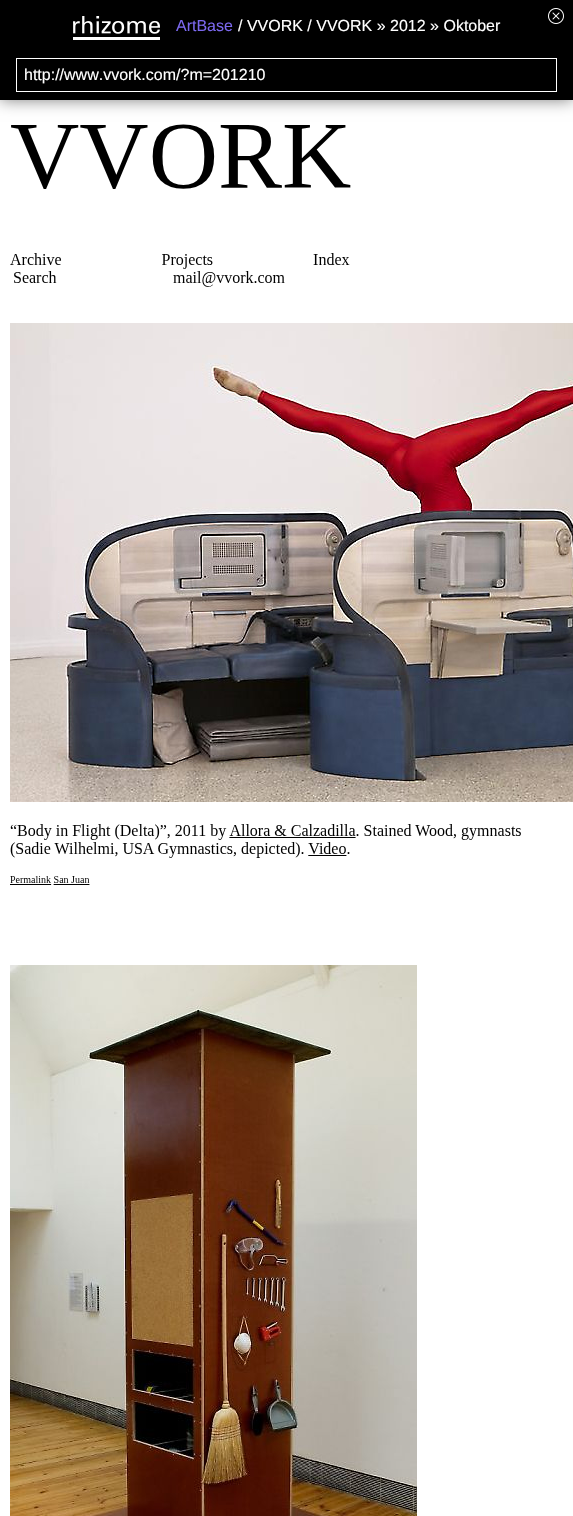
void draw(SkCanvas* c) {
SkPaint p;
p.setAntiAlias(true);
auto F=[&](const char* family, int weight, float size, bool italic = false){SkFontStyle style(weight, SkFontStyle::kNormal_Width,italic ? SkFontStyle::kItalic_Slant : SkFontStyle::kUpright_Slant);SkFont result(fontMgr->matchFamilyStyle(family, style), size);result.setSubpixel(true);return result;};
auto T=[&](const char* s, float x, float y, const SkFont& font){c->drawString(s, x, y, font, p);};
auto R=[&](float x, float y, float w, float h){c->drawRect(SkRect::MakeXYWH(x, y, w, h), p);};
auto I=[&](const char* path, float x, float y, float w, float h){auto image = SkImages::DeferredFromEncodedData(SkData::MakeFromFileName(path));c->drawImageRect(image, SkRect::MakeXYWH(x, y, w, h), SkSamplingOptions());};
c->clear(0xffffffff);
p.setColor(0x80000000);
p.setMaskFilter(SkMaskFilter::MakeBlur(kNormal_SkBlurStyle, 7.5));
c->drawRect(SkRect::MakeXYWH(0,0,573,100),p);
p.setMaskFilter(nullptr);
p.setColor(0xff000000);
R(0,0,573,100);
I("1.png",73,16,87,24);
auto f1 = F("Liberation Sans",400,16);
p.setColor(0xff7b68ee);
T("ArtBase",176,31,f1);
p.setColor(0xffffffff);
T("/ VVORK / VVORK » 2012 » Oktober",238,31,f1);
I("2.png",548,8,16,16);
p.setStroke(true);
p.setStrokeWidth(1);
c->drawRect(SkRect::MakeXYWH(16.5,58.5,540,33),p);
p.setStroke(false);
T("http://www.vvork.com/?m=201210",24,80,f1);
I("3.png",10,124,563,1392);
}
